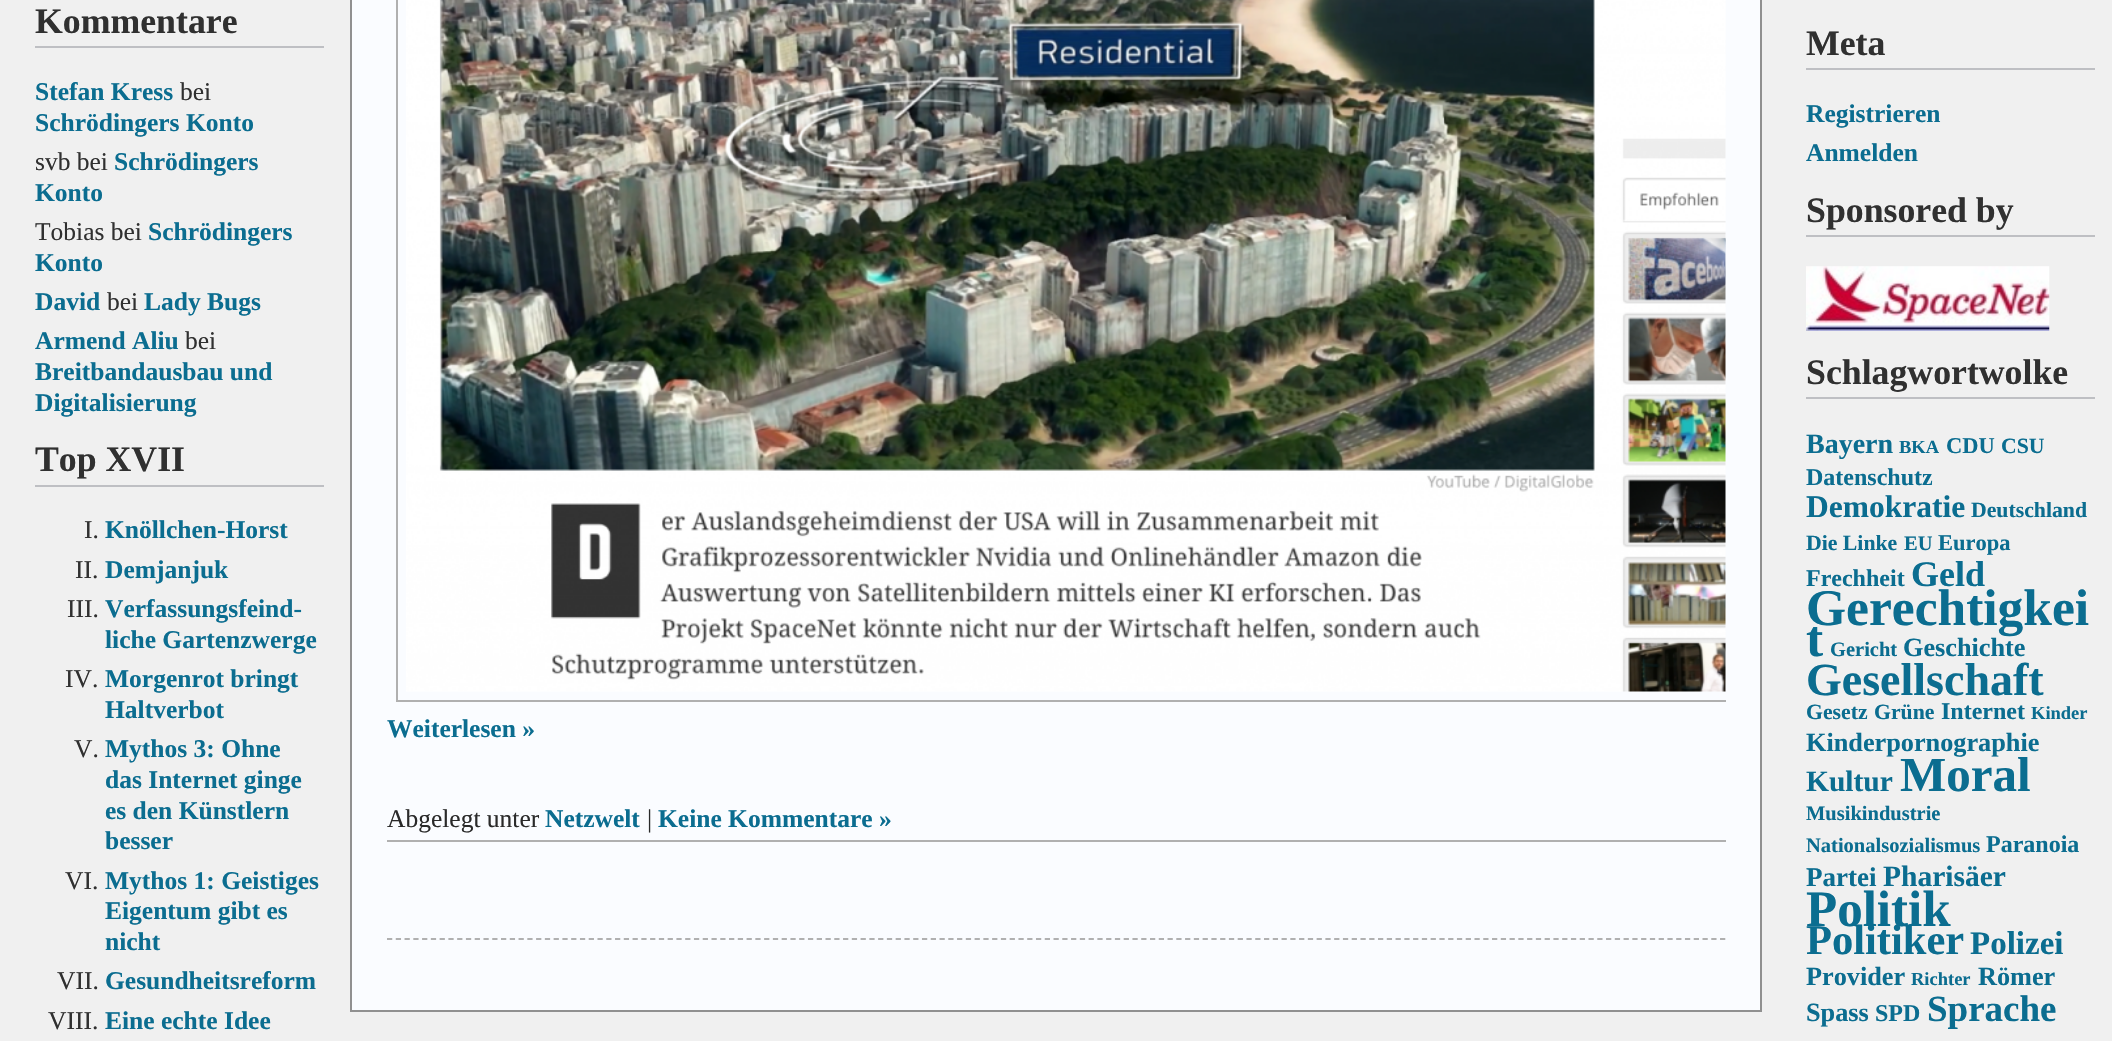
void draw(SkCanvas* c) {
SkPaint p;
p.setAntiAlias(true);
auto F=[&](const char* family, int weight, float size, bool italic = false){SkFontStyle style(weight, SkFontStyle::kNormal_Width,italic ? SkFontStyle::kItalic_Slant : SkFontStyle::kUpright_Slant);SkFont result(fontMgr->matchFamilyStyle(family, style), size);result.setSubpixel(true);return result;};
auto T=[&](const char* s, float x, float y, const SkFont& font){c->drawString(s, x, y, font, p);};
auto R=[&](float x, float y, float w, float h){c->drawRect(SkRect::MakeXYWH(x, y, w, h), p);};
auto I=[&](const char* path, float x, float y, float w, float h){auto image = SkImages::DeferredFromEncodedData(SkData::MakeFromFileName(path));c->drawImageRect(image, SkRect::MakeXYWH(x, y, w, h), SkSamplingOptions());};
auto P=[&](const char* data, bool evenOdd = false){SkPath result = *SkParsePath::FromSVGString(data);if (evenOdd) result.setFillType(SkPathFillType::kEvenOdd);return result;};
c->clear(0xfff0f0f0);
p.setColor(0xffbebfc3);
R(35,46,289,2);
auto f1 = F("Liberation Serif",700,35.75);
p.setColor(0xff303030);
T("Kommentare",35,33,f1);
auto f2 = F("Liberation Serif",700,25.5);
p.setColor(0xff0b6d90);
T("Stefan Kress",35,100,f2);
auto f3 = F("Liberation Serif",400,25.5);
p.setColor(0xff303030);
T("bei",180,100,f3);
p.setColor(0xff0b6d90);
T("Schrödingers Konto",35,131,f2);
p.setColor(0xff303030);
T("svb bei",35,170,f3);
p.setColor(0xff0b6d90);
T("Schrödingers",114,170,f2);
T("Konto",35,201,f2);
p.setColor(0xff303030);
T("Tobias bei",35,240,f3);
p.setColor(0xff0b6d90);
T("Schrödingers",148,240,f2);
T("Konto",35,271,f2);
T("David",35,310,f2);
p.setColor(0xff303030);
T("bei",107,310,f3);
p.setColor(0xff0b6d90);
T("Lady Bugs",144,310,f2);
T("Armend Aliu",35,349,f2);
p.setColor(0xff303030);
T("bei",185,349,f3);
p.setColor(0xff0b6d90);
T("Breitbandausbau und",35,380,f2);
T("Digitalisierung",35,411,f2);
p.setColor(0xffbebfc3);
R(35,485,289,2);
p.setColor(0xff303030);
T("Top XVII",35,471,f1);
T("I.",84,538,f3);
p.setColor(0xff0b6d90);
T("Knöllchen-Horst",105,538,f2);
p.setColor(0xff303030);
T("II.",75,578,f3);
p.setColor(0xff0b6d90);
T("Demjanjuk",105,578,f2);
p.setColor(0xff303030);
T("III.",67,617,f3);
p.setColor(0xff0b6d90);
T("Verfassungsfeind-",105,617,f2);
T("liche Gartenzwerge",105,648,f2);
p.setColor(0xff303030);
T("IV.",65,687,f3);
p.setColor(0xff0b6d90);
T("Morgenrot bringt",105,687,f2);
T("Haltverbot",105,718,f2);
p.setColor(0xff303030);
T("V.",74,757,f3);
p.setColor(0xff0b6d90);
T("Mythos 3: Ohne",105,757,f2);
T("das Internet ginge",105,788,f2);
T("es den Künstlern",105,819,f2);
T("besser",105,849,f2);
p.setColor(0xff303030);
T("VI.",65,889,f3);
p.setColor(0xff0b6d90);
T("Mythos 1: Geistiges",105,889,f2);
T("Eigentum gibt es",105,919,f2);
T("nicht",105,950,f2);
p.setColor(0xff303030);
T("VII.",57,989,f3);
p.setColor(0xff0b6d90);
T("Gesundheitsreform",105,989,f2);
p.setColor(0xff303030);
T("VIII.",48,1029,f3);
p.setColor(0xff0b6d90);
T("Eine echte Idee",105,1029,f2);
p.setColor(0xfffafcff);
c->drawRect(SkRect::MakeXYWH(351,-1,1410,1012),p);
p.setStroke(true);
p.setStrokeWidth(2);
p.setColor(0xff909090);
c->drawRect(SkRect::MakeXYWH(351,-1,1410,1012),p);
c->save();
c->clipRect(SkRect::MakeXYWH(387,0,1339,802));
p.setColor(0xffb0b0b0);
c->drawRect(SkRect::MakeXYWH(397,-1,1357,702),p);
c->restore();
I("1.png",406,0,1320,692);
p.setStroke(false);
p.setColor(0xff0b6d90);
T("Weiterlesen »",387,737,f2);
p.setColor(0xffb0b0b0);
R(387,840,1339,2);
p.setColor(0xff2a2a2a);
T("Abgelegt unter",387,827,f3);
p.setColor(0xff0b6d90);
T("Netzwelt",545,827,f2);
p.setColor(0xff2a2a2a);
T("|",647,827,f3);
p.setColor(0xff0b6d90);
T("Keine Kommentare »",658,827,f2);
p.setStroke(true);
p.setStrokeWidth(1.8);
p.setColor(0xffb0b0b0);
p.setPathEffect(SkDashPathEffect::Make({{5.25f,3.52f}}, 0));
c->drawPath(P("M387 939h1338.5"),p);
p.setPathEffect(nullptr);
p.setStroke(false);
p.setColor(0xffbebfc3);
R(1806,68,289,2);
p.setColor(0xff303030);
T("Meta",1806,55,f1);
p.setColor(0xff0b6d90);
T("Registrieren",1806,122,f2);
T("Anmelden",1806,161,f2);
p.setColor(0xffbebfc3);
R(1806,235,289,2);
p.setColor(0xff303030);
T("Sponsored by",1806,222,f1);
I("2.png",1806,266,244,65);
p.setColor(0xffbebfc3);
R(1806,397,289,2);
p.setColor(0xff303030);
T("Schlagwortwolke",1806,384,f1);
auto f4 = F("Liberation Serif",700,28);
p.setColor(0xff0b6d90);
T("Bayern",1806,453,f4);
auto f5 = F("Liberation Serif",700,18.5);
T("BKA",1899,453,f5);
auto f6 = F("Liberation Serif",700,22.5);
T("CDU",1946,453,f6);
auto f7 = F("Liberation Serif",700,21.75);
T("CSU",2001,453,f7);
auto f8 = F("Liberation Serif",700,24);
T("Datenschutz",1806,485,f8);
auto f9 = F("Liberation Serif",700,31.5);
T("Demokratie",1806,517,f9);
T("Deutschland",1971,517,f7);
T("Die Linke",1806,550,f7);
auto f10 = F("Liberation Serif",700,20.5);
T("EU",1904,550,f10);
T("Europa",1938,550,f6);
T("Frechheit",1806,586,f8);
auto f11 = F("Liberation Serif",700,36);
T("Geld",1911,586,f11);
auto f12 = F("Liberation Serif",700,51.5);
T("Gerechtigkei",1806,625,f12);
T("t",1806,656,f12);
T("Gericht",1830,656,f10);
auto f13 = F("Liberation Serif",700,26.25);
T("Geschichte",1903,656,f13);
auto f14 = F("Liberation Serif",700,46);
T("Gesellschaft",1806,695,f14);
T("Gesetz",1806,719,f7);
T("Grüne",1874,719,f7);
T("Internet",1941,719,f8);
T("Kinder",2031,719,f5);
T("Kinderpornographie",1806,751,f13);
auto f15 = F("Liberation Serif",700,29.5);
T("Kultur",1806,791,f15);
auto f16 = F("Liberation Serif",700,49);
T("Moral",1900,791,f16);
T("Musikindustrie",1806,820,f10);
T("Nationalsozialismus",1806,852,f10);
T("Paranoia",1986,852,f8);
auto f17 = F("Liberation Serif",700,27);
T("Partei",1806,886,f17);
T("Pharisäer",1883,886,f15);
auto f18 = F("Liberation Serif",700,51);
T("Politik",1806,926,f18);
auto f19 = F("Liberation Serif",700,42.5);
T("Politiker",1806,954,f19);
auto f20 = F("Liberation Serif",700,33);
T("Polizei",1970,954,f20);
T("Provider",1806,985,f13);
T("Richter",1911,985,f5);
T("Römer",1978,985,f13);
T("Spass",1806,1021,f13);
T("SPD",1875,1021,f8);
auto f21 = F("Liberation Serif",700,37);
T("Sprache",1927,1021,f21);
}
